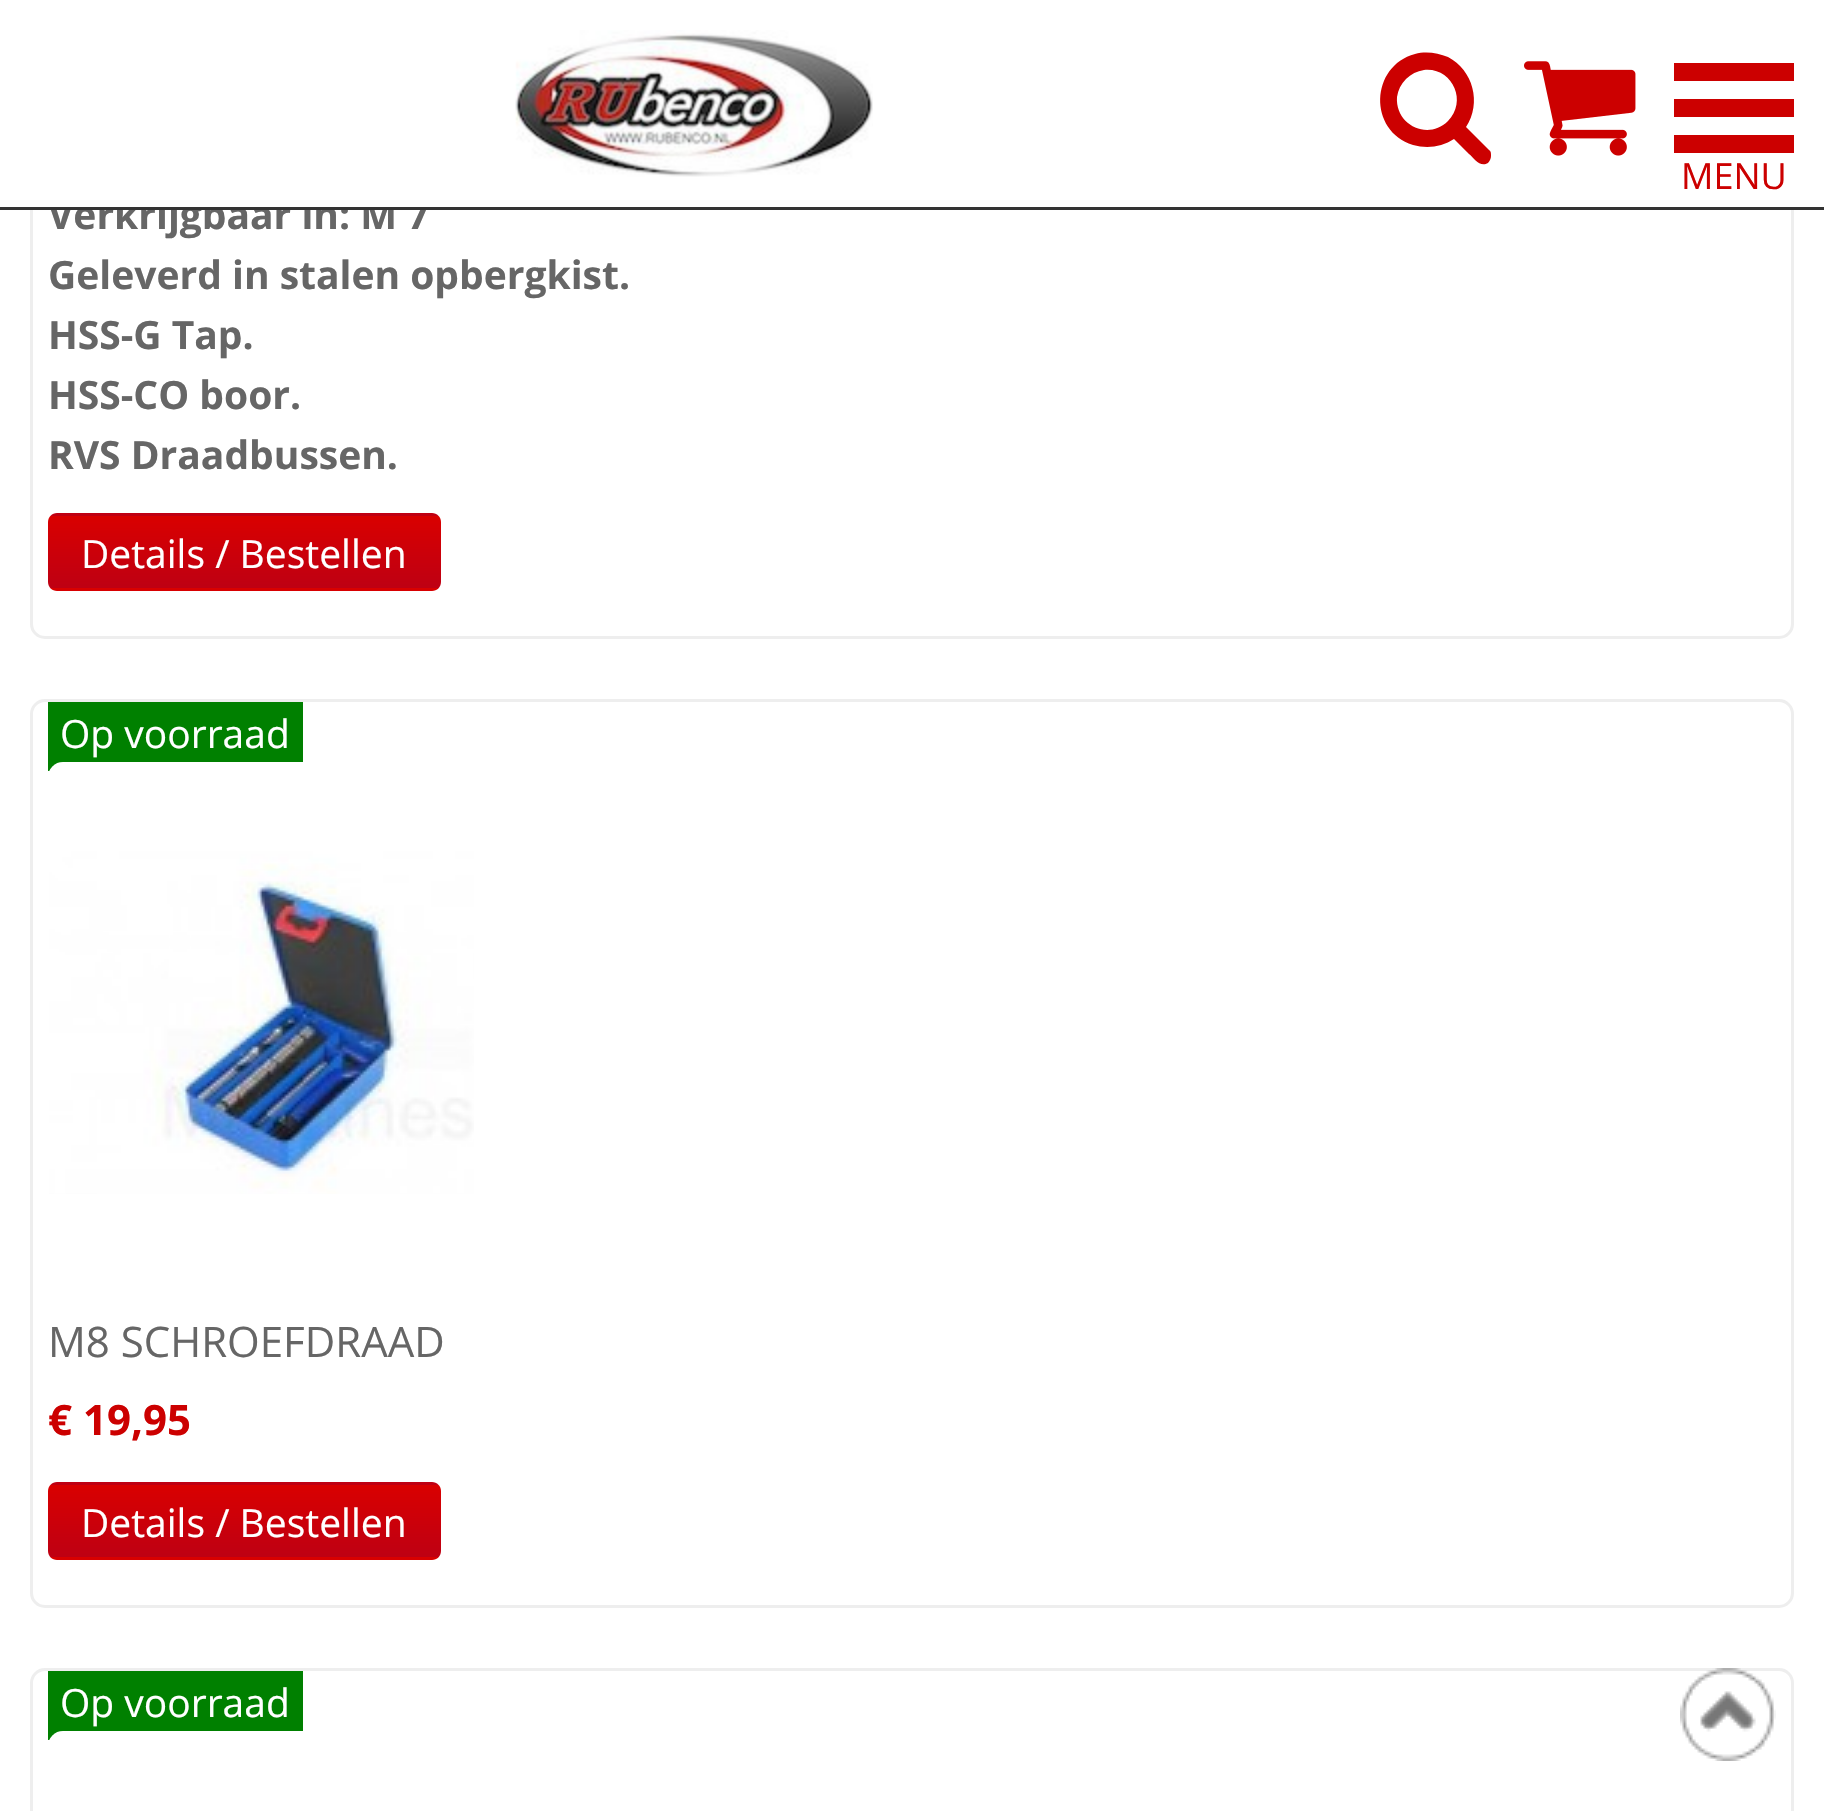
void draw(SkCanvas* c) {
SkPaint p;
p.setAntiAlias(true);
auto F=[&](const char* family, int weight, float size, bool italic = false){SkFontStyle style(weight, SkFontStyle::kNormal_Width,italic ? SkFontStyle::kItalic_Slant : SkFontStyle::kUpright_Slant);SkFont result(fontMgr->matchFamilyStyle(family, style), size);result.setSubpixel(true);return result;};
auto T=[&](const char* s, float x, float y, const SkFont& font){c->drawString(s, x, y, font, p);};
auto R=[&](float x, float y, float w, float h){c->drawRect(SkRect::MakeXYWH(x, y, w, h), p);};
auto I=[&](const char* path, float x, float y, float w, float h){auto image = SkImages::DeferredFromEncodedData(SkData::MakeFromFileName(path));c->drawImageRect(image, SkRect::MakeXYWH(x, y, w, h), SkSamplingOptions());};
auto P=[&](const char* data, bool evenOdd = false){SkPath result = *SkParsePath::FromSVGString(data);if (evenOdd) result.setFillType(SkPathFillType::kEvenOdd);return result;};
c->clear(0xffffffff);
p.setStroke(true);
p.setStrokeWidth(3);
p.setColor(0xffeeeeee);
c->drawRoundRect(SkRect::MakeXYWH(31.5,-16.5,1761,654),13.5,13.5,p);
auto f1 = F("Open Sans",700,39);
p.setStroke(false);
p.setColor(0xff666666);
T("Verkrijgbaar in: M 7",48,229,f1);
p.setColor(0xffffffff);
R(30,0,1764,207);
p.setColor(0xff333333);
R(0,207,1824,3);
I("1.png",515,30,358,147);
p.setColor(0xffcc0000);
c->drawPath(P("M1448 121c20-20 4-54-24-51c-7 1-13 4-18 9c-5 5-8 11-9 18c-2 28 31 44 51 24zm43 35c0 2-1 5-3 7c-8 5-14-5-19-9l-15-15c-12 8-27 10-41 6c-45-14-43-79 2-91c11-3 23-1 33 3c25 13 34 46 18 70l23 23c2 1 2 3 2 6z"),p);
I("2.png",1524,61,112,95);
R(1674,135,120,18);
R(1674,99,120,18);
R(1674,63,120,18);
auto f2 = F("Open Sans",400,36);
T("MENU",1681,189,f2);
p.setStroke(true);
p.setColor(0xffeeeeee);
c->drawRoundRect(SkRect::MakeXYWH(31.5,1669.5,1761,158),13.5,13.5,p);
I("3.png",1680,1668,96,93);
p.setStroke(false);
p.setColor(0xff666666);
T("Geleverd in stalen opbergkist.",48,289,f1);
T("HSS-G Tap.",48,349,f1);
T("HSS-CO boor.",48,409,f1);
T("RVS Draadbussen.",48,469,f1);
c->save();
c->clipPath(P("M57 513h375c5 0 9 4 9 9v60c0 5-4 9-9 9h-375c-5 0-9-4-9-9v-60c0-5 4-9 9-9z"),true);
{
const SkColor colors[] = {0xffd90000,0xffbe0013};
const float stops[] = {0,1};
const SkPoint ends[] = {{245,444}, {245,516}};
p.setShader(SkGradientShader::MakeLinear(ends, colors, stops, 2, SkTileMode::kClamp));
p.setAlpha(255);
}
R(48,513,393,3);
{
const SkColor colors[] = {0xffd90000,0xffbe0013};
const float stops[] = {0,1};
const SkPoint ends[] = {{245,516}, {245,588}};
p.setShader(SkGradientShader::MakeLinear(ends, colors, stops, 2, SkTileMode::kClamp));
p.setAlpha(255);
}
R(48,516,393,72);
{
const SkColor colors[] = {0xffd90000,0xffbe0013};
const float stops[] = {0,1};
const SkPoint ends[] = {{245,588}, {245,660}};
p.setShader(SkGradientShader::MakeLinear(ends, colors, stops, 2, SkTileMode::kClamp));
p.setAlpha(255);
}
R(48,588,393,3);
c->restore();
auto f3 = F("Open Sans",400,39);
p.setShader(nullptr);
p.setColor(0xffffffff);
T("Details / Bestellen",81,568,f3);
p.setStroke(true);
p.setColor(0xffeeeeee);
c->drawRoundRect(SkRect::MakeXYWH(31.5,700.5,1761,906),13.5,13.5,p);
p.setStroke(false);
p.setColor(0xff008000);
R(48,702,255,69);
p.setColor(0xffffffff);
T("Op voorraad",60,748,f3);
I("4.png",49,762,425,432);
auto f4 = F("Open Sans",400,42);
p.setColor(0xff666666);
T("M8 SCHROEFDRAAD",48,1357,f4);
auto f5 = F("Open Sans",700,42);
p.setColor(0xffcc0000);
T("€ 19,95",48,1435,f5);
c->save();
c->clipPath(P("M57 1482h375c5 0 9 4 9 9v60c0 5-4 9-9 9h-375c-5 0-9-4-9-9v-60c0-5 4-9 9-9z"),true);
{
const SkColor colors[] = {0xffd90000,0xffbe0013};
const float stops[] = {0,1};
const SkPoint ends[] = {{245,1413}, {245,1485}};
p.setShader(SkGradientShader::MakeLinear(ends, colors, stops, 2, SkTileMode::kClamp));
p.setAlpha(255);
}
R(48,1482,393,3);
{
const SkColor colors[] = {0xffd90000,0xffbe0013};
const float stops[] = {0,1};
const SkPoint ends[] = {{245,1485}, {245,1557}};
p.setShader(SkGradientShader::MakeLinear(ends, colors, stops, 2, SkTileMode::kClamp));
p.setAlpha(255);
}
R(48,1485,393,72);
{
const SkColor colors[] = {0xffd90000,0xffbe0013};
const float stops[] = {0,1};
const SkPoint ends[] = {{245,1557}, {245,1629}};
p.setShader(SkGradientShader::MakeLinear(ends, colors, stops, 2, SkTileMode::kClamp));
p.setAlpha(255);
}
R(48,1557,393,3);
c->restore();
p.setShader(nullptr);
p.setColor(0xffffffff);
T("Details / Bestellen",81,1537,f3);
p.setColor(0xff008000);
R(48,1671,255,69);
p.setColor(0xffffffff);
T("Op voorraad",60,1717,f3);
I("5.png",49,1731,254,9);
}
